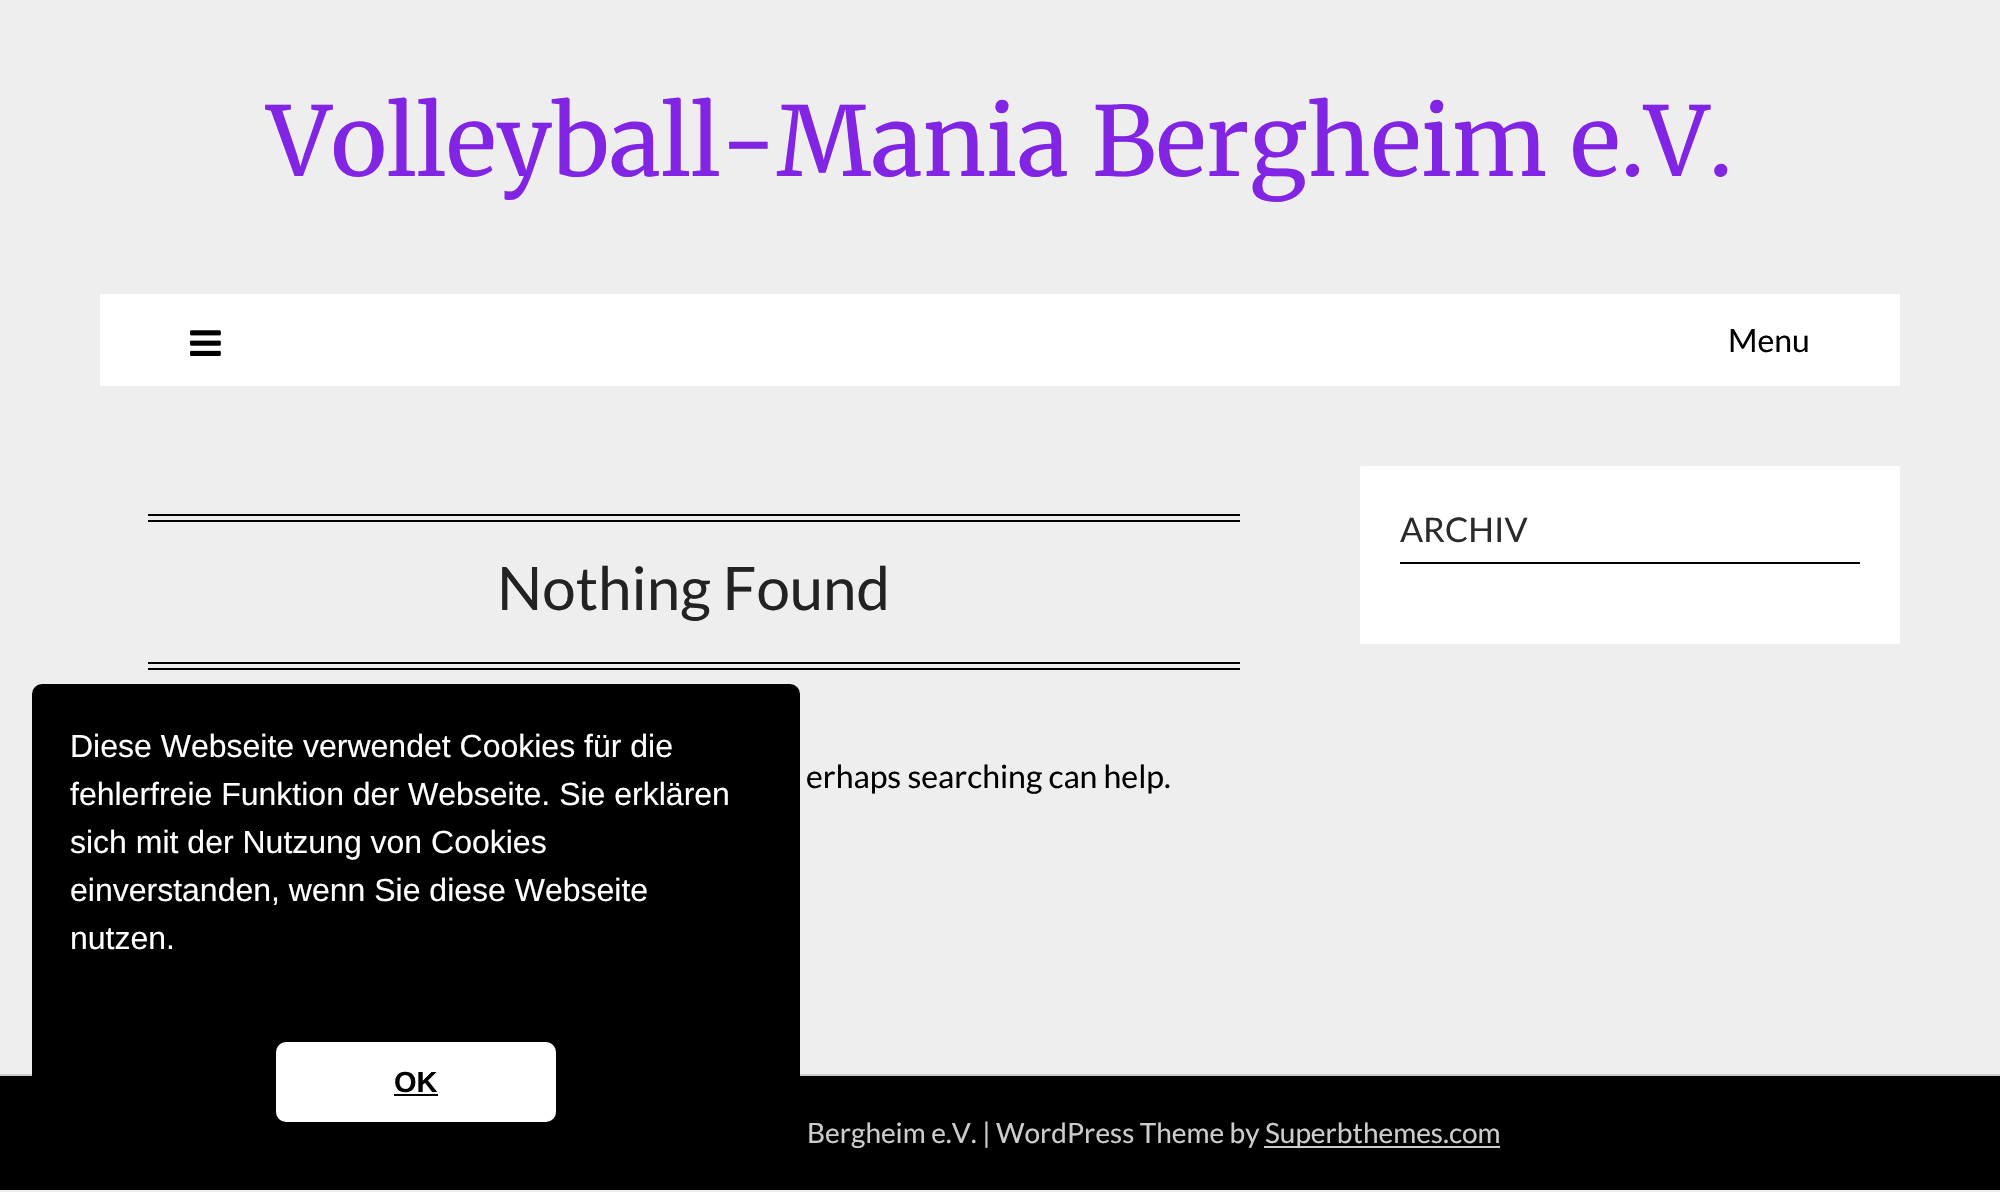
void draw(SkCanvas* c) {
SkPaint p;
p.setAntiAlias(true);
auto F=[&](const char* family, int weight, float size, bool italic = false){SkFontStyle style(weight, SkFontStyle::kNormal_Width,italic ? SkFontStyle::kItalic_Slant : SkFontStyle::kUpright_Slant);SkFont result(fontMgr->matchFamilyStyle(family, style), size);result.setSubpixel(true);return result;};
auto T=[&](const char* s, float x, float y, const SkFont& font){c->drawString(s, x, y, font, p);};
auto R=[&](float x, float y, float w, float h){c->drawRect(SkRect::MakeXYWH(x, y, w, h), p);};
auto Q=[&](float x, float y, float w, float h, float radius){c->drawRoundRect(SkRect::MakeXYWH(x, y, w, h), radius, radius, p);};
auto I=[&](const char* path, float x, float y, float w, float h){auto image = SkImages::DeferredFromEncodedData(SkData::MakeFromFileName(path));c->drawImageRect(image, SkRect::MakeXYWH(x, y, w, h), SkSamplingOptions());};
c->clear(0xffeeeeee);
auto f1 = F("Merriweather",400,96);
p.setColor(0xff8224e3);
T("Volleyball-Mania Bergheim e.V.",267,176,f1);
p.setColor(0xffffffff);
R(100,294,1800,92);
I("1.png",190,330,31,26);
auto f2 = F("Lato",400,32);
p.setColor(0xff000000);
T("Menu",1728,352,f2);
p.setColor(0xffffffff);
Q(1360,466,540,178,2);
p.setColor(0xff000000);
R(1400,562,460,2);
auto f3 = F("Lato",400,34);
p.setColor(0xff2b2b2b);
T("ARCHIV",1400,542,f3);
p.setColor(0xff000000);
R(148,514,1092,2);
R(148,520,1092,2);
R(148,662,1092,2);
R(148,668,1092,2);
auto f4 = F("Lato",400,60);
p.setColor(0xff222222);
T("Nothing Found",497,610,f4);
p.setColor(0xff000000);
T("erhaps searching can help.",806,788,f2);
R(0,1076,2000,114);
p.setColor(0xffcccccc);
R(0,1074,2000,2);
auto f5 = F("Lato",400,28);
T("Bergheim e.V. | WordPress Theme by",807,1143,f5);
R(1264,1146,236,2);
T("Superbthemes.com",1265,1143,f5);
p.setColor(0xff000000);
Q(32,684,768,476,10);
auto f6 = F("Liberation Sans",400,32);
p.setColor(0xffffffff);
T("Diese Webseite verwendet Cookies für die",70,757,f6);
T("fehlerfreie Funktion der Webseite. Sie erklären",70,805,f6);
T("sich mit der Nutzung von Cookies",70,853,f6);
T("einverstanden, wenn Sie diese Webseite",70,901,f6);
T("nutzen.",70,949,f6);
Q(276,1042,280,80,10);
auto f7 = F("Liberation Sans",700,29);
p.setColor(0xff000000);
T("OK",394,1092,f7);
R(394,1094,44,2);
}
